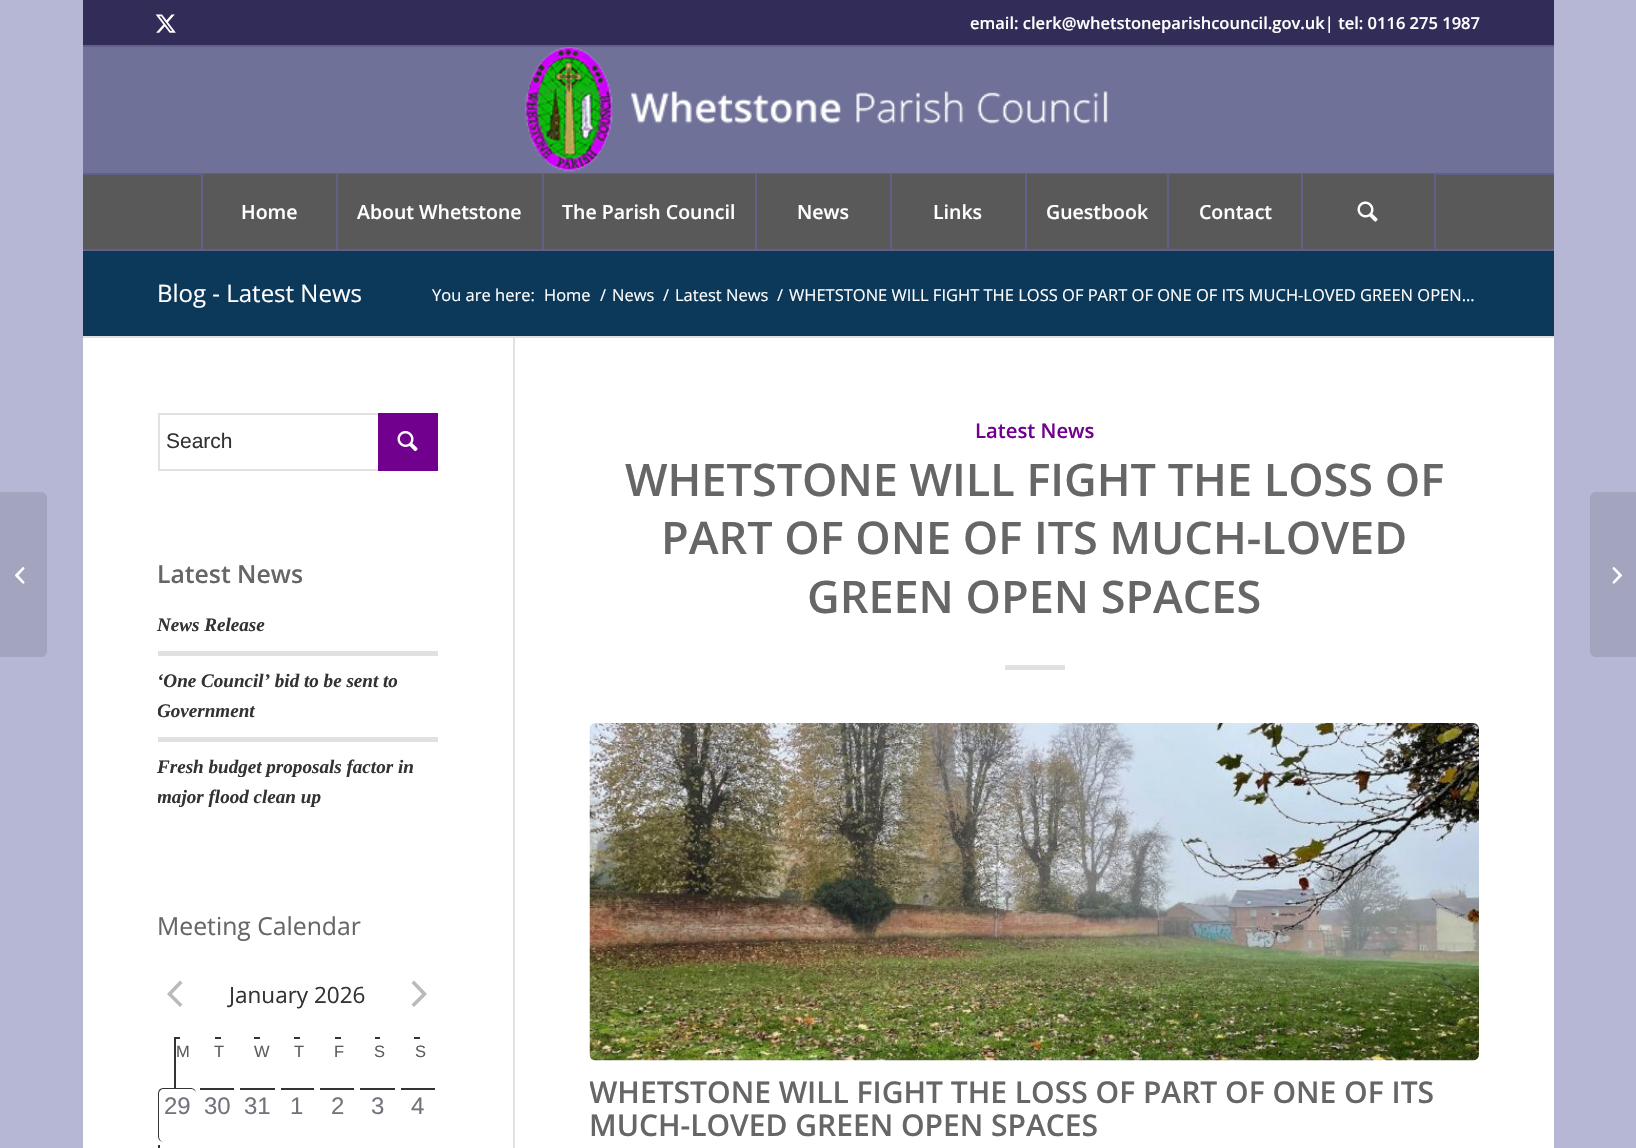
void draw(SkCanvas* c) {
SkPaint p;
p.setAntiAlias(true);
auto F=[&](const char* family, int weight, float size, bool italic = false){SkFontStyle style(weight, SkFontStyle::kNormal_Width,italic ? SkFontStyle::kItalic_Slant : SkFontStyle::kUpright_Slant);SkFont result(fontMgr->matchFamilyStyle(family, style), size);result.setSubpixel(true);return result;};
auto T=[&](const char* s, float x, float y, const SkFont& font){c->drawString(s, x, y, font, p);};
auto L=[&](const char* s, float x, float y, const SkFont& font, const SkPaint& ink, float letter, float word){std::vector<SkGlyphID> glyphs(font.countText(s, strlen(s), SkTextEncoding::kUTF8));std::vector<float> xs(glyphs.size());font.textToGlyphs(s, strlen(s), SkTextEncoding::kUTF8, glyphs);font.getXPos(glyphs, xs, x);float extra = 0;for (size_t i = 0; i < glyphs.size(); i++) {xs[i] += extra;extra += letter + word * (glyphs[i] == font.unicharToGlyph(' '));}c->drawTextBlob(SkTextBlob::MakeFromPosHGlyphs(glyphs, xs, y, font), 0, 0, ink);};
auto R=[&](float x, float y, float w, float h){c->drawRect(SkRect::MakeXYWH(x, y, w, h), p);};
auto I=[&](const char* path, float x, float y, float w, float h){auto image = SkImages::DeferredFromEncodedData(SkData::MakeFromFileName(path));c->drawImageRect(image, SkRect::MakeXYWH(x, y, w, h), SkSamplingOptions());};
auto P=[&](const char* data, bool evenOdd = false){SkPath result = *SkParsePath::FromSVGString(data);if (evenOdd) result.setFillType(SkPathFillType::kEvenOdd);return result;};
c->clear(0xffb5b7d4);
p.setColor(0xff322c58);
R(83,0,1471,45);
p.setColor(0xff5f618b);
R(83,45,1471,2);
I("1.png",155,14,21,19);
auto f1 = F("Open Sans",600,16.5);
p.setColor(0xffffffff);
T("email: clerk@whetstoneparishcouncil.gov.uk| tel: 0116 275 1987",970,29,f1);
p.setColor(0xff5f618b);
R(83,249,1471,2);
p.setColor(0xff6f7198);
R(83,47,1471,126);
I("2.png",525,47,583,125);
p.setColor(0xff595959);
R(83,175,1471,74);
p.setColor(0xff5f618b);
R(83,173,1471,2);
p.setColor(0xff595959);
R(203,174,133,1);
p.setColor(0xff5f618b);
R(201,174,2,75);
auto f2 = F("Open Sans",600,19.5);
p.setColor(0xffffffff);
T("Home",241,219,f2);
p.setColor(0xff595959);
R(338,174,204,1);
p.setColor(0xff5f618b);
R(336,174,2,75);
p.setColor(0xffffffff);
T("About Whetstone",357,219,f2);
p.setColor(0xff595959);
R(544,174,211,1);
p.setColor(0xff5f618b);
R(542,174,2,75);
p.setColor(0xffffffff);
T("The Parish Council",562,219,f2);
p.setColor(0xff595959);
R(757,174,133,1);
p.setColor(0xff5f618b);
R(755,174,2,75);
p.setColor(0xffffffff);
T("News",797,219,f2);
p.setColor(0xff595959);
R(892,174,133,1);
p.setColor(0xff5f618b);
R(890,174,2,75);
p.setColor(0xffffffff);
T("Links",933,219,f2);
p.setColor(0xff595959);
R(1027,174,140,1);
p.setColor(0xff5f618b);
R(1025,174,2,75);
p.setColor(0xffffffff);
T("Guestbook",1046,219,f2);
p.setColor(0xff595959);
R(1169,174,132,1);
p.setColor(0xff5f618b);
R(1167,174,2,75);
p.setColor(0xffffffff);
T("Contact",1199,219,f2);
p.setColor(0xff595959);
R(1303,174,131,1);
p.setColor(0xff5f618b);
R(1434,174,2,75);
R(1301,174,2,75);
I("3.png",1357,201,21,21);
p.setColor(0xffa3a5bf);
c->drawPath(P("M0 492h41c3.5 0 6 2.5 6 6v153c0 3.5-2.5 6-6 6h-41z"),p);
I("4.png",15,567,10,17);
p.setColor(0xff0c3859);
R(83,251,1471,85);
auto f3 = F("Open Sans",400,24);
p.setColor(0xffffffff);
T("Blog - Latest News",157,302,f3);
auto f4 = F("Open Sans",400,16.5);
T("You are here:",432,301,f4);
T("Home",544,301,f4);
T("/",600,301,f4);
T("News",612,301,f4);
T("/",663,301,f4);
T("Latest News",675,301,f4);
T("/",777,301,f4);
T("WHETSTONE WILL FIGHT THE LOSS OF PART OF ONE OF ITS MUCH-LOVED GREEN OPEN...",789,301,f4);
R(83,338,1471,810);
p.setColor(0xffe1e1e1);
R(83,336,1471,2);
p.setStroke(true);
p.setStrokeWidth(2);
c->drawRect(SkRect::MakeXYWH(159,414,278,56),p);
auto f5 = F("Liberation Sans",400,21);
p.setStroke(false);
p.setColor(0xff333333);
T("Search",166,448,f5);
p.setColor(0xff72008f);
R(378,413,60,58);
I("5.png",397,431,21,21);
auto f6 = F("Open Sans",600,24.75);
p.setColor(0xff666666);
T("Latest News",157,583,f6);
auto f7 = F("Liberation Serif",700,19.1,true);
p.setColor(0xff333333);
T("News Release",157,631,f7);
p.setColor(0xffe1e1e1);
R(158,651,280,5);
p.setColor(0xff333333);
T("‘One Council’ bid to be sent to",157,687,f7);
c->save();
c->clipRect(SkRect::MakeXYWH(158,338,355,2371));
T("Government",157,717,f7);
c->restore();
p.setColor(0xffe1e1e1);
R(158,737,280,5);
p.setColor(0xff333333);
T("Fresh budget proposals factor in",157,773,f7);
c->save();
c->clipRect(SkRect::MakeXYWH(158,338,355,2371));
T("major flood clean up",157,803,f7);
c->restore();
auto f8 = F("Open Sans",400,24.75);
p.setColor(0xff666666);
T("Meeting Calendar",157,935,f8);
p.setColor(0xffbababa);
c->drawPath(P("M182.5 1004.5l-2.5 2.5l-13-13l13-13.5l2.5 2.5l-10.5 11z"),p);
auto f9 = F("Open Sans",400,22.5);
p.setColor(0xff333333);
T("January 2026",229,1003,f9);
p.setColor(0xffbababa);
c->drawPath(P("M411.5 983l2.5-2.5l13 13.5l-13 13l-2.5-2.5l10.5-10.5z"),p);
p.setColor(0xff333333);
R(174,1037,6,2);
R(174,1037,2,51);
auto f10 = F("Liberation Sans",400,16.5);
p.setColor(0xff5d5d5d);
L("M",176,1057,f10,p,2,0);
p.setColor(0xff333333);
R(215,1037,6,2);
p.setColor(0xff5d5d5d);
L("T",214,1057,f10,p,2,0);
p.setColor(0xff333333);
R(254,1037,6,2);
p.setColor(0xff5d5d5d);
L("W",254,1057,f10,p,2,0);
p.setColor(0xff333333);
R(294,1037,6,2);
p.setColor(0xff5d5d5d);
L("T",294,1057,f10,p,2,0);
p.setColor(0xff333333);
R(335,1037,6,2);
p.setColor(0xff5d5d5d);
L("F",334,1057,f10,p,2,0);
p.setColor(0xff333333);
R(375,1037,5,2);
p.setColor(0xff5d5d5d);
L("S",374,1057,f10,p,2,0);
p.setColor(0xff333333);
R(414,1037,6,2);
p.setColor(0xff5d5d5d);
L("S",415,1057,f10,p,2,0);
p.setColor(0xff333333);
c->drawPath(P("M164 1088h26c4 0 6 2 6 6v42c0 3-2 6-6 6h-26c-4 0-6-3-6-6v-42c0-4 2-6 6-6zm0 1h26c4 0 6 2 6 5v42c0 3-2 6-6 6h-26c-3 0-5-3-5-6v-42c0-3 2-5 5-5z",true),p);
auto f11 = F("Liberation Sans",400,24);
p.setColor(0xff72747d);
T("29",164,1114,f11);
p.setColor(0xff333333);
R(200,1088,34,2);
p.setColor(0xff72747d);
T("30",204,1114,f11);
p.setColor(0xff333333);
R(240,1088,35,2);
p.setColor(0xff72747d);
T("31",244,1114,f11);
p.setColor(0xff333333);
R(281,1088,33,2);
p.setColor(0xff72747d);
T("1",290,1114,f11);
p.setColor(0xff333333);
R(320,1088,34,2);
p.setColor(0xff72747d);
T("2",331,1114,f11);
p.setColor(0xff333333);
R(360,1088,35,2);
p.setColor(0xff72747d);
T("3",371,1114,f11);
p.setColor(0xff333333);
R(401,1088,34,2);
p.setColor(0xff72747d);
T("4",411,1114,f11);
p.setColor(0xff333333);
R(158,1145,2,3);
p.setColor(0xffe1e1e1);
R(513,338,2,810);
auto f12 = F("Open Sans",600,20.25);
p.setColor(0xff72008f);
T("Latest News",975,438,f12);
auto f13 = F("Open Sans",600,45);
p.setColor(0xff666666);
T("WHETSTONE WILL FIGHT THE LOSS OF",625,496,f13);
T("PART OF ONE OF ITS MUCH-LOVED",661,554,f13);
T("GREEN OPEN SPACES",807,613,f13);
p.setColor(0xffe1e1e1);
R(1005,665,60,5);
I("6.png",589,723,890,338);
c->save();
c->clipRect(SkRect::MakeXYWH(590,413,964,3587));
auto f14 = F("Open Sans",600,30);
p.setColor(0xff666666);
T("WHETSTONE WILL FIGHT THE LOSS OF PART OF ONE OF ITS",589,1103,f14);
c->restore();
T("MUCH-LOVED GREEN OPEN SPACES",589,1136,f14);
p.setColor(0xffa3a5bf);
c->drawPath(P("M1596 492h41v165h-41c-3.5 0-6-2.5-6-6v-153c0-3.5 2.5-6 6-6z"),p);
I("7.png",1612,567,10,17);
}
